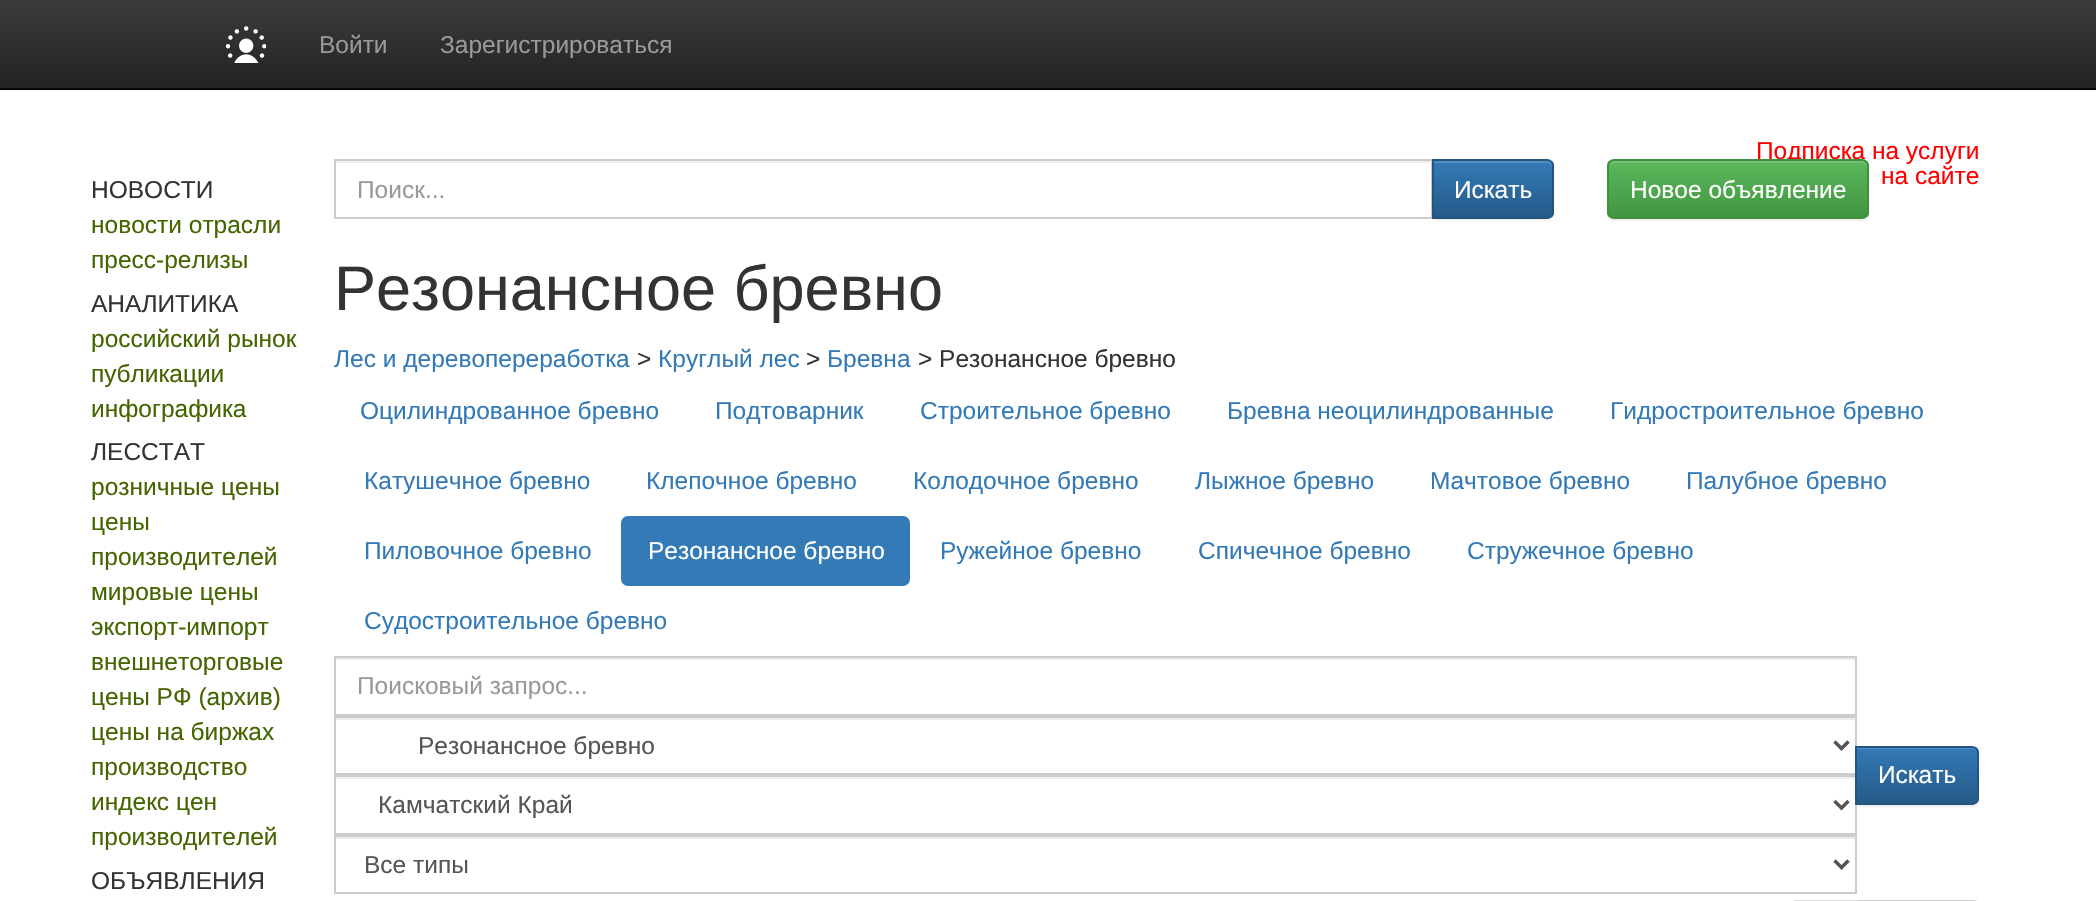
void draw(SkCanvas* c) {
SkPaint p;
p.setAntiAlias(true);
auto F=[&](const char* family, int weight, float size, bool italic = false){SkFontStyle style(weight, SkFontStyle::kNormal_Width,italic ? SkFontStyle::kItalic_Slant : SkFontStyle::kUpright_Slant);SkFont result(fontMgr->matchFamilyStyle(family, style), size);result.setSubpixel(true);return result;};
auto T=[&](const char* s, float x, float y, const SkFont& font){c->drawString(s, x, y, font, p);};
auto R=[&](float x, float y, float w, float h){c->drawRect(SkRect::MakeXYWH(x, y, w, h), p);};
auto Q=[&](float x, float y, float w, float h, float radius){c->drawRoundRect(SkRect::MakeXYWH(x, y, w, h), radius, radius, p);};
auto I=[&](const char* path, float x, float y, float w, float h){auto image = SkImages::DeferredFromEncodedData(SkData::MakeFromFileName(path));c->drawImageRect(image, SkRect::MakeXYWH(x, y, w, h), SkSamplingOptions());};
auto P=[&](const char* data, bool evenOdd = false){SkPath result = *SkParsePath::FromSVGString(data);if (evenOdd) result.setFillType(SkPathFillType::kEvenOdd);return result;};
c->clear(0xffffffff);
{
const SkColor colors[] = {0xff3c3c3c,0xff222222};
const float stops[] = {0,1};
const SkPoint ends[] = {{1048,0}, {1048,88}};
p.setShader(SkGradientShader::MakeLinear(ends, colors, stops, 2, SkTileMode::kClamp));
p.setAlpha(255);
}
R(0,0,2096,88);
p.setShader(nullptr);
p.setColor(0xff080808);
R(0,88,2096,2);
I("1.png",226,26,40,37);
auto f1 = F("Liberation Sans",400,24.5);
p.setColor(0xff999999);
T("Войти",319,53,f1);
T("Зарегистрироваться",440,53,f1);
p.setColor(0xff333333);
T("НОВОСТИ",91,198,f1);
p.setColor(0xff446500);
T("новости отрасли",91,233,f1);
T("пресс-релизы",91,268,f1);
p.setColor(0xff333333);
T("АНАЛИТИКА",91,312,f1);
p.setColor(0xff446500);
T("российский рынок",91,347,f1);
T("публикации",91,382,f1);
T("инфографика",91,417,f1);
p.setColor(0xff333333);
T("ЛЕССТАТ",91,460,f1);
p.setColor(0xff446500);
T("розничные цены",91,495,f1);
T("цены",91,530,f1);
T("производителей",91,565,f1);
T("мировые цены",91,600,f1);
T("экспорт-импорт",91,635,f1);
T("внешнеторговые",91,670,f1);
T("цены РФ (архив)",91,705,f1);
T("цены на биржах",91,740,f1);
T("производство",91,775,f1);
T("индекс цен",91,810,f1);
T("производителей",91,845,f1);
p.setColor(0xff333333);
T("ОБЪЯВЛЕНИЯ",91,889,f1);
p.setColor(0xffff0000);
T("Подписка на услуги",1756,159,f1);
T("на сайте",1881,184,f1);
p.setColor(0xffececec);
R(336,161,1096,2);
p.setStroke(true);
p.setStrokeWidth(2);
p.setColor(0xffcccccc);
c->drawRect(SkRect::MakeXYWH(335,160,1097,58),p);
p.setStroke(false);
p.setColor(0xff999999);
T("Поиск...",357,198,f1);
p.setColor(0x12000000);
p.setMaskFilter(SkMaskFilter::MakeBlur(kNormal_SkBlurStyle, 1));
c->drawRoundRect(SkRect::MakeXYWH(1432,161,122,60),7,7,p);
p.setMaskFilter(nullptr);
c->save();
c->clipPath(P("M1432 159h115c4 0 7 3 7 7v46c0 4-3 7-7 7h-115z"),true);
{
const SkColor colors[] = {0xff337ab7,0xff265a88};
const float stops[] = {0,1};
const SkPoint ends[] = {{1493,161}, {1493,217}};
p.setShader(SkGradientShader::MakeLinear(ends, colors, stops, 2, SkTileMode::kClamp));
p.setAlpha(255);
}
R(1434,161,120,56);
c->restore();
p.setShader(nullptr);
p.setColor(0x26ffffff);
c->drawPath(P("M1433 163h114c3 0 5 2 5 5v-2c0-3-2-5-5-5h-114z"),p);
p.setStroke(true);
p.setColor(0xff245580);
c->drawPath(P("M1433 160h114c3.5 0 6 2.5 6 6v46c0 3.5-2.5 6-6 6h-114z"),p);
p.setStroke(false);
p.setColor(0xffffffff);
T("Искать",1454,198,f1);
p.setColor(0x12000000);
p.setMaskFilter(SkMaskFilter::MakeBlur(kNormal_SkBlurStyle, 1));
c->drawRoundRect(SkRect::MakeXYWH(1607,161,262,60),7,7,p);
p.setMaskFilter(nullptr);
c->save();
c->clipPath(P("M1614 159h248c4 0 7 3 7 7v46c0 4-3 7-7 7h-248c-4 0-7-3-7-7v-46c0-4 3-7 7-7z"),true);
{
const SkColor colors[] = {0xff5cb85c,0xff419641};
const float stops[] = {0,1};
const SkPoint ends[] = {{1738,161}, {1738,217}};
p.setShader(SkGradientShader::MakeLinear(ends, colors, stops, 2, SkTileMode::kClamp));
p.setAlpha(255);
}
R(1607,161,262,56);
c->restore();
p.setShader(nullptr);
p.setColor(0x26ffffff);
c->drawPath(P("M1614 163h248c3 0 5 2 5 5v-2c0-3-2-5-5-5h-249c-3 0-5 2-5 5v2c0-3 3-5 6-5z"),p);
p.setStroke(true);
p.setColor(0xff3e8f3e);
c->drawRoundRect(SkRect::MakeXYWH(1608,160,260,58),6,6,p);
p.setStroke(false);
p.setColor(0xffffffff);
T("Новое объявление",1630,198,f1);
auto f2 = F("Liberation Sans",400,63);
p.setColor(0xff333333);
T("Резонансное бревно",334,310,f2);
p.setColor(0xff337ab7);
T("Лес и деревопереработка",334,367,f1);
p.setColor(0xff333333);
T(">",637,367,f1);
p.setColor(0xff337ab7);
T("Круглый лес",658,367,f1);
p.setColor(0xff333333);
T(">",806,367,f1);
p.setColor(0xff337ab7);
T("Бревна",827,367,f1);
p.setColor(0xff333333);
T("> Резонансное бревно",918,367,f1);
p.setColor(0xff337ab7);
T("Оцилиндрованное бревно",360,419,f1);
T("Подтоварник",715,419,f1);
T("Строительное бревно",920,419,f1);
T("Бревна неоцилиндрованные",1227,419,f1);
T("Гидростроительное бревно",1610,419,f1);
T("Катушечное бревно",364,489,f1);
T("Клепочное бревно",646,489,f1);
T("Колодочное бревно",913,489,f1);
T("Лыжное бревно",1195,489,f1);
T("Мачтовое бревно",1430,489,f1);
T("Палубное бревно",1686,489,f1);
T("Пиловочное бревно",364,559,f1);
Q(621,516,289,70,7);
p.setColor(0xffffffff);
T("Резонансное бревно",648,559,f1);
p.setColor(0xff337ab7);
T("Ружейное бревно",940,559,f1);
T("Спичечное бревно",1198,559,f1);
T("Стружечное бревно",1467,559,f1);
T("Судостроительное бревно",364,629,f1);
p.setColor(0xffececec);
R(336,658,1519,2);
p.setStroke(true);
p.setColor(0xffcccccc);
c->drawRect(SkRect::MakeXYWH(335,657,1521,58),p);
p.setStroke(false);
p.setColor(0xff999999);
T("Поисковый запрос...",357,694,f1);
p.setColor(0xffececec);
R(336,718,1519,2);
p.setStroke(true);
p.setColor(0xffcccccc);
c->drawRect(SkRect::MakeXYWH(335,717,1521,57),p);
p.setStrokeWidth(3.5);
p.setColor(0xff555555);
c->drawPath(P("M1834.5 741.5l7 7l7-7"),p);
p.setStroke(false);
T("Резонансное бревно",418,754,f1);
p.setColor(0xffececec);
R(336,777,1519,2);
p.setStroke(true);
p.setStrokeWidth(2);
p.setColor(0xffcccccc);
c->drawRect(SkRect::MakeXYWH(335,776,1521,58),p);
p.setStroke(false);
p.setColor(0x12000000);
p.setMaskFilter(SkMaskFilter::MakeBlur(kNormal_SkBlurStyle, 1));
c->drawRoundRect(SkRect::MakeXYWH(1855,747,124,60),7,7,p);
p.setMaskFilter(nullptr);
c->save();
c->clipPath(P("M1855 746h117c4 0 7 3 7 7v45c0 4-3 7-7 7h-117z"),true);
{
const SkColor colors[] = {0xff337ab7,0xff265a88};
const float stops[] = {0,1};
const SkPoint ends[] = {{1917,747}, {1917,803}};
p.setShader(SkGradientShader::MakeLinear(ends, colors, stops, 2, SkTileMode::kClamp));
p.setAlpha(255);
}
R(1857,747,122,56);
c->restore();
p.setShader(nullptr);
p.setColor(0x26ffffff);
c->drawPath(P("M1857 749h115c3 0 6 2 6 5v-2c0-3-2-5-5-5h-116z"),p);
p.setStroke(true);
p.setColor(0xff245580);
c->drawPath(P("M1856 747h116c3.5 0 6 2.5 6 6v45c0 3.5-2.5 6-6 6h-116z"),p);
p.setStroke(false);
p.setColor(0xffffffff);
T("Искать",1878,783,f1);
p.setStroke(true);
p.setStrokeWidth(3.5);
p.setColor(0xff555555);
c->drawPath(P("M1834.5 801l7 7l7-7"),p);
p.setStroke(false);
T("Камчатский Край",378,813,f1);
p.setColor(0xffececec);
R(336,837,1519,2);
p.setStroke(true);
p.setStrokeWidth(2);
p.setColor(0xffcccccc);
c->drawRect(SkRect::MakeXYWH(335,836,1521,57),p);
p.setStrokeWidth(3.5);
p.setColor(0xff555555);
c->drawPath(P("M1834.5 860.5l7 7l7-7"),p);
p.setStroke(false);
T("Все типы",364,873,f1);
p.setStroke(true);
p.setStrokeWidth(2);
p.setColor(0xffcccccc);
c->drawRect(SkRect::MakeXYWH(1856,901,61,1),p);
p.setColor(0xffdbdbdb);
c->drawRect(SkRect::MakeXYWH(1795,901,61,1),p);
p.setColor(0xffcccccc);
c->drawPath(P("M1917 901h57c2 0 4 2 4 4v-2c0 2-2 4-4 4h-57z"),p);
}
